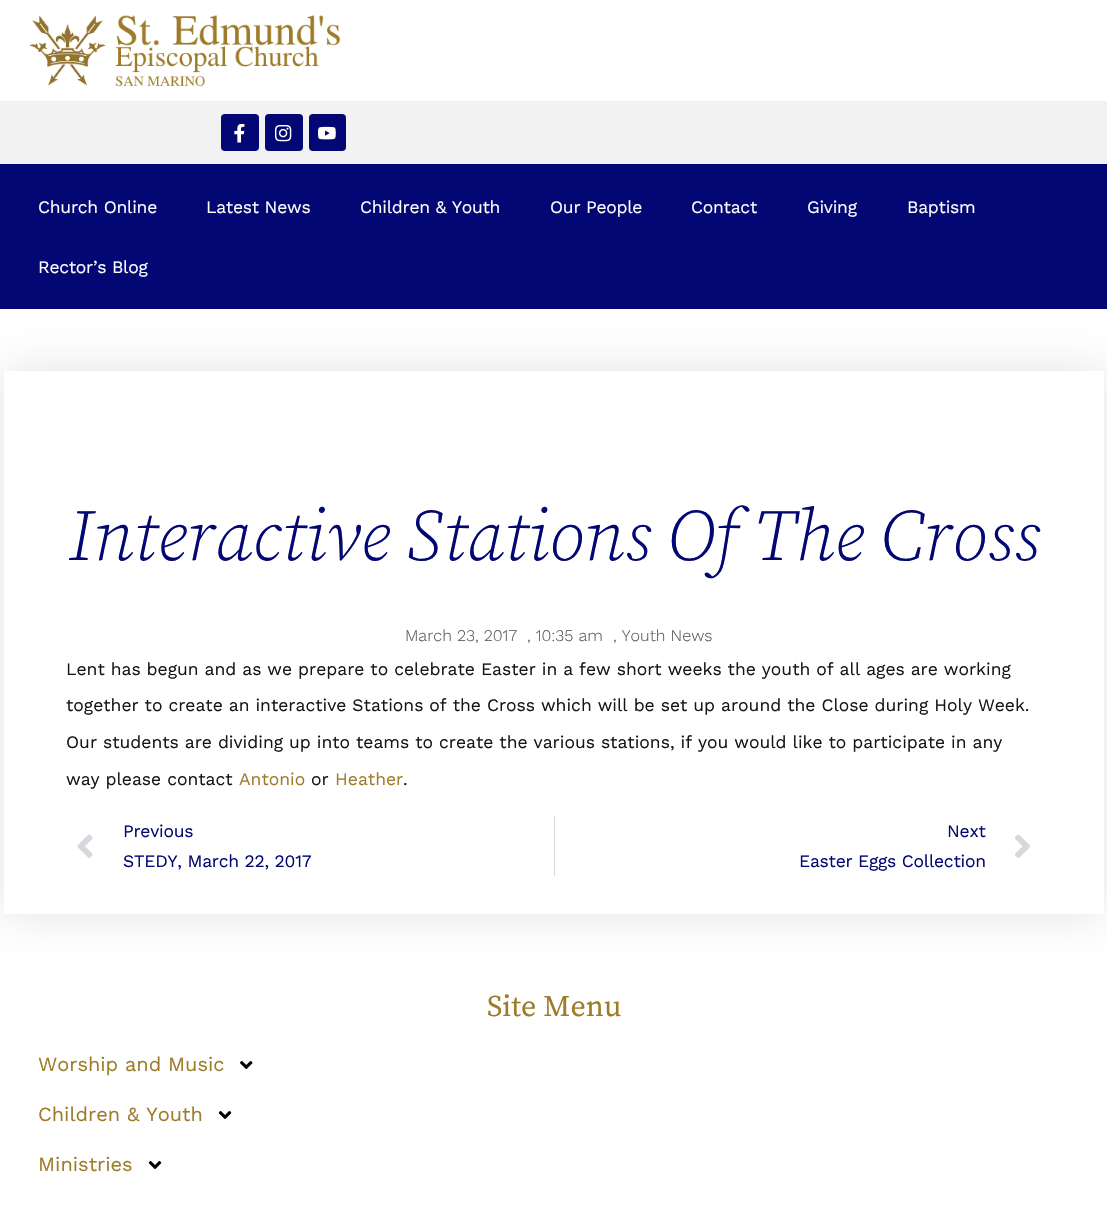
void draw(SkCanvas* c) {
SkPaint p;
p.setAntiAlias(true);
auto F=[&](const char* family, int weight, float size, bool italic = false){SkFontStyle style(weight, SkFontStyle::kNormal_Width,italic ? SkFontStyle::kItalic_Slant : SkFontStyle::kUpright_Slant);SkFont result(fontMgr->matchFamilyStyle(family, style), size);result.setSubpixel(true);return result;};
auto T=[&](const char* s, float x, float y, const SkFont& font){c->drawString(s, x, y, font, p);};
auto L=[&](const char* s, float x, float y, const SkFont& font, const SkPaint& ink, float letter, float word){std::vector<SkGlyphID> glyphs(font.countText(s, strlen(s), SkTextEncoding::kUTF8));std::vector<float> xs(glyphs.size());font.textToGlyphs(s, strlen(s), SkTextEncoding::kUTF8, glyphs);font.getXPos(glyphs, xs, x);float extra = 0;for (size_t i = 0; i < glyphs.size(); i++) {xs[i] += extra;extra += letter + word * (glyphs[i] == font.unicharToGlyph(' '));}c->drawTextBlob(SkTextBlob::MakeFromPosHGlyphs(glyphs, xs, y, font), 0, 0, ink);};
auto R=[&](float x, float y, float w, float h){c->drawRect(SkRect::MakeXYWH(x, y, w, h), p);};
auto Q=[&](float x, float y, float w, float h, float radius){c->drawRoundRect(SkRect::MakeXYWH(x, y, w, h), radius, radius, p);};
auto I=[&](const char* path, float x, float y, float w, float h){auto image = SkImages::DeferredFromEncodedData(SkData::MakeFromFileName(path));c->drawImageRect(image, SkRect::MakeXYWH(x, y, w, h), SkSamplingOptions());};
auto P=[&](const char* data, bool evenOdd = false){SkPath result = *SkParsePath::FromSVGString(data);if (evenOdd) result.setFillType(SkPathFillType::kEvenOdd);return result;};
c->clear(0xffffffff);
I("1.png",29,15,312,72);
p.setColor(0xfff2f2f2);
R(0,101,1107,63);
p.setColor(0xff020774);
Q(221,114,38,37,4);
I("2.png",234,124,11,19);
Q(265,114,38,37,4);
I("3.png",274,125,18,17);
Q(309,114,37,37,4);
I("4.png",318,126,18,14);
R(0,164,1107,145);
auto f1 = F("Work Sans",400,17.5);
p.setColor(0xffffffff);
L("Church Online",38,213,f1,p,-.25,0);
L("Latest News",206,213,f1,p,-.25,0);
L("Children & Youth",360,213,f1,p,-.25,0);
L("Our People",550,213,f1,p,-.25,0);
L("Contact",691,213,f1,p,-.25,0);
L("Giving",807,213,f1,p,-.25,0);
L("Baptism",907,213,f1,p,-.25,0);
L("Rector’s Blog",38,273,f1,p,-.25,0);
c->save();
c->clipPath(P("M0 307h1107v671h-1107zm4 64h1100v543h-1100z",true),true);
p.setColor(0x1c000000);
p.setMaskFilter(SkMaskFilter::MakeBlur(kNormal_SkBlurStyle, 21));
c->drawRect(SkRect::MakeXYWH(4,371,1100,543),p);
p.setMaskFilter(nullptr);
c->restore();
auto f2 = F("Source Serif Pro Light",300,72.5,true);
p.setColor(0xff020774);
T("Interactive Stations Of The Cross",68,560,f2);
auto f3 = F("Work Sans",300,16.25);
p.setColor(0xff54595f);
T("March 23, 2017",405,641,f3);
T(", 10:35 am",527,641,f3);
T(", Youth News",613,641,f3);
p.setColor(0xff161616);
T("Lent has begun and as we prepare to celebrate Easter in a few short weeks the youth of all ages are working",66,675,f1);
T("together to create an interactive Stations of the Cross which will be set up around the Close during Holy Week.",66,711,f1);
T("Our students are dividing up into teams to create the various stations, if you would like to participate in any",66,748,f1);
T("way please contact",66,785,f1);
p.setColor(0xff9d7b29);
T("Antonio",239,785,f1);
p.setColor(0xff161616);
T("or",311,785,f1);
p.setColor(0xff9d7b29);
T("Heather",335,785,f1);
p.setColor(0xff161616);
T(".",403,785,f1);
I("5.png",77,834,16,24);
p.setColor(0xff020774);
L("Previous",123,837,f1,p,-.25,0);
L("STEDY, March 22, 2017",123,867,f1,p,-.25,0);
p.setColor(0xffd5d8dc);
R(554,816,1,60);
p.setColor(0xff020774);
L("Next",947,837,f1,p,-.25,0);
L("Easter Eggs Collection",799,867,f1,p,-.25,0);
I("6.png",1015,834,15,24);
auto f4 = F("Source Serif Pro",400,30);
p.setColor(0xff9d7b29);
T("Site Menu",487,1016,f4);
auto f5 = F("Work Sans",400,20);
T("Worship and Music",38,1071,f5);
I("7.png",240,1061,13,8);
T("Children & Youth",38,1121,f5);
I("8.png",218,1111,14,8);
T("Ministries",38,1171,f5);
I("8.png",148,1161,14,8);
}
